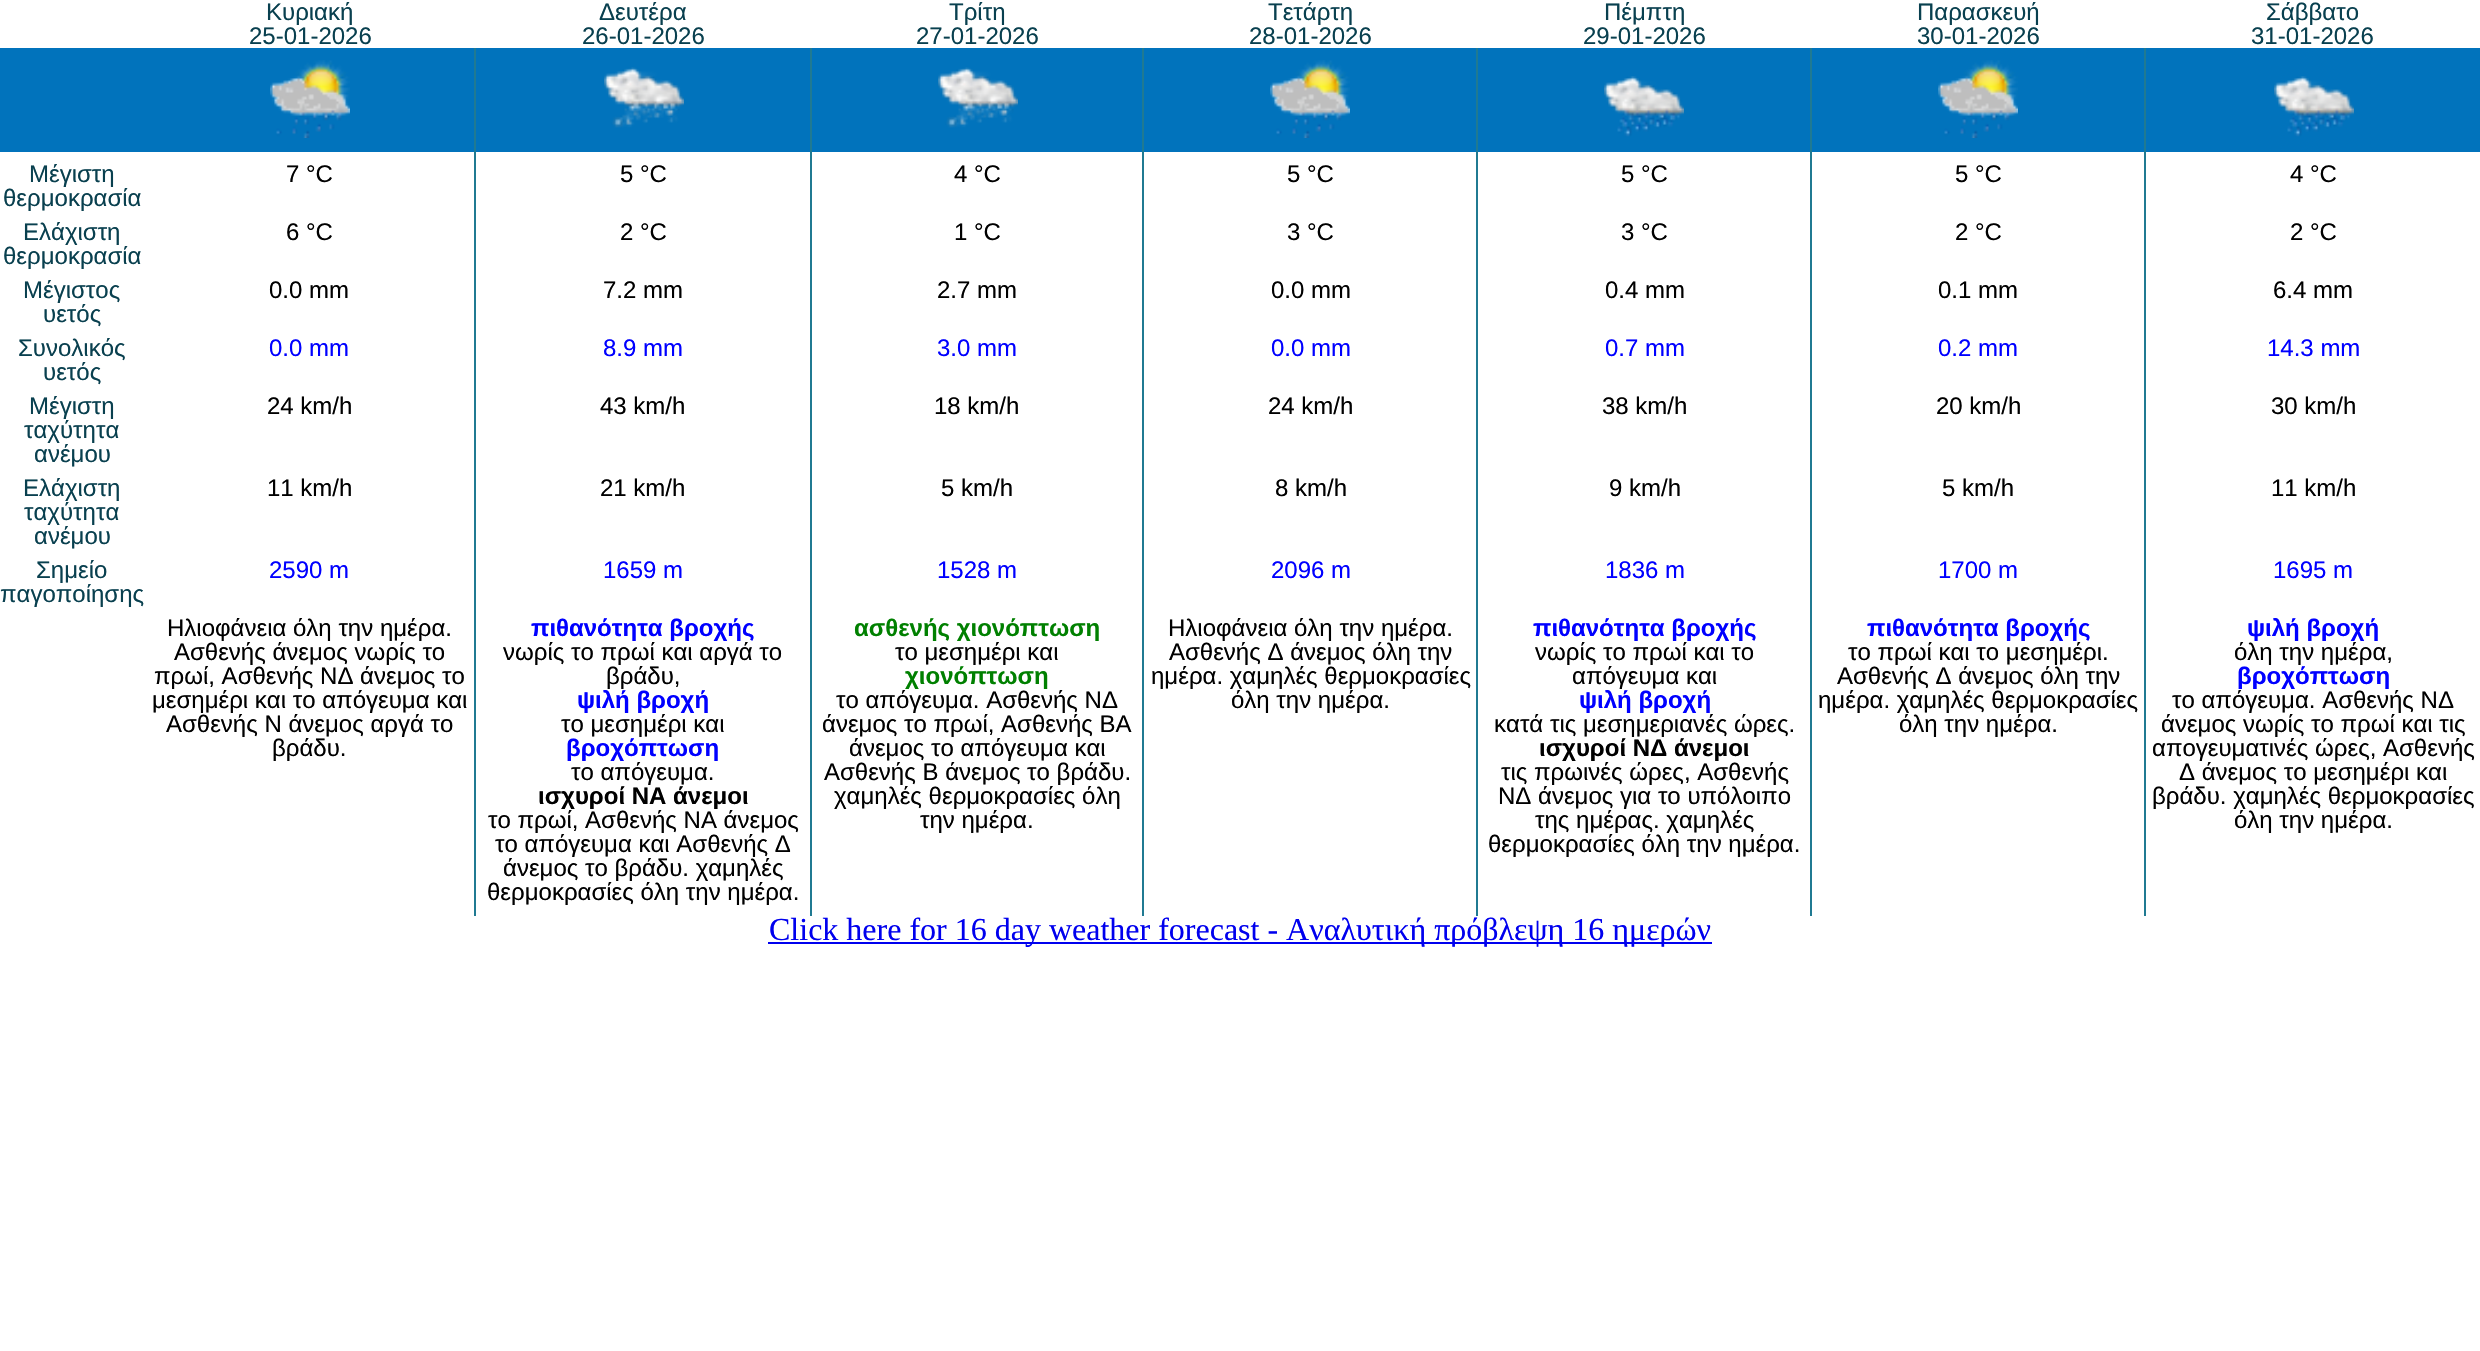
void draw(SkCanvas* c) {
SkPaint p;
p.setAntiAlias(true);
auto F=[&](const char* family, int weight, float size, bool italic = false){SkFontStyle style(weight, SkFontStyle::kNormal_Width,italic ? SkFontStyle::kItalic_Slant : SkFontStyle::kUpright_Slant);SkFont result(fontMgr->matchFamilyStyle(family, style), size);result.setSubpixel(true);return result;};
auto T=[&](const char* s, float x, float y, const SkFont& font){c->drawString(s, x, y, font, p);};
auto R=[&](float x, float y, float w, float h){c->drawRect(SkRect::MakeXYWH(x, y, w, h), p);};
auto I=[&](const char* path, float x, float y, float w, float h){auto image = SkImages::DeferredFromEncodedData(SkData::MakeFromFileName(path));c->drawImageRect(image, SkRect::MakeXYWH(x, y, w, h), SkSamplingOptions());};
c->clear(0xffffffff);
auto f1 = F("Liberation Sans",400,24);
p.setColor(0xff09404f);
T("Κυριακή",266,20,f1);
T("25-01-2026",249,44,f1);
T("Δευτέρα",599,20,f1);
T("26-01-2026",582,44,f1);
T("Τρίτη",949,20,f1);
T("27-01-2026",916,44,f1);
T("Τετάρτη",1268,20,f1);
T("28-01-2026",1249,44,f1);
T("Πέμπτη",1604,20,f1);
T("29-01-2026",1583,44,f1);
T("Παρασκευή",1917,20,f1);
T("30-01-2026",1917,44,f1);
T("Σάββατο",2266,20,f1);
T("31-01-2026",2251,44,f1);
p.setColor(0xff0173bc);
R(0,48,2480,104);
I("1.png",270,60,80,78);
I("2.png",604,67,80,61);
I("2.png",938,67,80,61);
I("1.png",1270,60,80,78);
I("3.png",1604,76,80,61);
I("1.png",1938,60,80,78);
I("3.png",2274,76,80,61);
p.setColor(0xff09404f);
T("Μέγιστη",29,182,f1);
T("θερμοκρασία",3,206,f1);
p.setColor(0xff000000);
T("7 °C",286,182,f1);
T("5 °C",620,182,f1);
T("4 °C",954,182,f1);
T("5 °C",1287,182,f1);
T("5 °C",1621,182,f1);
T("5 °C",1955,182,f1);
T("4 °C",2290,182,f1);
p.setColor(0xff09404f);
T("Eλάχιστη",23,240,f1);
T("θερμοκρασία",3,264,f1);
p.setColor(0xff000000);
T("6 °C",286,240,f1);
T("2 °C",620,240,f1);
T("1 °C",954,240,f1);
T("3 °C",1287,240,f1);
T("3 °C",1621,240,f1);
T("2 °C",1955,240,f1);
T("2 °C",2290,240,f1);
p.setColor(0xff09404f);
T("Μέγιστος",23,298,f1);
T("υετός",43,322,f1);
p.setColor(0xff000000);
T("0.0 mm",269,298,f1);
T("7.2 mm",603,298,f1);
T("2.7 mm",937,298,f1);
T("0.0 mm",1271,298,f1);
T("0.4 mm",1605,298,f1);
T("0.1 mm",1938,298,f1);
T("6.4 mm",2273,298,f1);
p.setColor(0xff09404f);
T("Συνολικός",18,356,f1);
T("υετός",43,380,f1);
p.setColor(0xff0000ff);
T("0.0 mm",269,356,f1);
T("8.9 mm",603,356,f1);
T("3.0 mm",937,356,f1);
T("0.0 mm",1271,356,f1);
T("0.7 mm",1605,356,f1);
T("0.2 mm",1938,356,f1);
T("14.3 mm",2267,356,f1);
p.setColor(0xff09404f);
T("Mέγιστη",29,414,f1);
T("ταχύτητα",24,438,f1);
T("ανέμου",34,462,f1);
p.setColor(0xff000000);
T("24 km/h",267,414,f1);
T("43 km/h",600,414,f1);
T("18 km/h",934,414,f1);
T("24 km/h",1268,414,f1);
T("38 km/h",1602,414,f1);
T("20 km/h",1936,414,f1);
T("30 km/h",2271,414,f1);
p.setColor(0xff09404f);
T("Eλάχιστη",23,496,f1);
T("ταχύτητα",24,520,f1);
T("ανέμου",34,544,f1);
p.setColor(0xff000000);
T("11 km/h",267,496,f1);
T("21 km/h",600,496,f1);
T("5 km/h",941,496,f1);
T("8 km/h",1275,496,f1);
T("9 km/h",1609,496,f1);
T("5 km/h",1942,496,f1);
T("11 km/h",2271,496,f1);
p.setColor(0xff09404f);
T("Σημείο",36,578,f1);
T("παγοποίησης",0,602,f1);
p.setColor(0xff0000ff);
T("2590 m",269,578,f1);
T("1659 m",603,578,f1);
T("1528 m",937,578,f1);
T("2096 m",1271,578,f1);
T("1836 m",1605,578,f1);
T("1700 m",1938,578,f1);
T("1695 m",2273,578,f1);
p.setColor(0xff207a92);
R(474,48,2,868);
p.setColor(0xff000000);
T("Ηλιοφάνεια όλη την ημέρα.",167,636,f1);
T("Ασθενής άνεμος νωρίς το",174,660,f1);
T("πρωί, Ασθενής ΝΔ άνεμος το",154,684,f1);
T("μεσημέρι και το απόγευμα και",152,708,f1);
T("Ασθενής Ν άνεμος αργά το",166,732,f1);
T("βράδυ.",272,756,f1);
p.setColor(0xff207a92);
R(810,48,2,868);
auto f2 = F("Liberation Sans",700,24);
p.setColor(0xff0000ff);
T("πιθανότητα βροχής",531,636,f2);
p.setColor(0xff000000);
T("νωρίς το πρωί και αργά το",503,660,f1);
T("βράδυ,",606,684,f1);
p.setColor(0xff0000ff);
T("ψιλή βροχή",577,708,f2);
p.setColor(0xff000000);
T("το μεσημέρι και",561,732,f1);
p.setColor(0xff0000ff);
T("βροχόπτωση",566,756,f2);
p.setColor(0xff000000);
T("το απόγευμα.",571,780,f1);
T("ισχυροί ΝΑ άνεμοι",538,804,f2);
T("το πρωί, Ασθενής ΝΑ άνεμος",488,828,f1);
T("το απόγευμα και Ασθενής Δ",495,852,f1);
T("άνεμος το βράδυ. χαμηλές",503,876,f1);
T("θερμοκρασίες όλη την ημέρα.",487,900,f1);
p.setColor(0xff207a92);
R(1142,48,2,868);
p.setColor(0xff008000);
T("ασθενής χιονόπτωση",854,636,f2);
p.setColor(0xff000000);
T("το μεσημέρι και",895,660,f1);
p.setColor(0xff008000);
T("χιονόπτωση",905,684,f2);
p.setColor(0xff000000);
T("το απόγευμα. Ασθενής ΝΔ",836,708,f1);
T("άνεμος το πρωί, Ασθενής ΒΑ",822,732,f1);
T("άνεμος το απόγευμα και",849,756,f1);
T("Ασθενής Β άνεμος το βράδυ.",824,780,f1);
T("χαμηλές θερμοκρασίες όλη",834,804,f1);
T("την ημέρα.",920,828,f1);
p.setColor(0xff207a92);
R(1476,48,2,868);
p.setColor(0xff000000);
T("Ηλιοφάνεια όλη την ημέρα.",1168,636,f1);
T("Ασθενής Δ άνεμος όλη την",1169,660,f1);
T("ημέρα. χαμηλές θερμοκρασίες",1151,684,f1);
T("όλη την ημέρα.",1231,708,f1);
p.setColor(0xff207a92);
R(1810,48,2,868);
p.setColor(0xff0000ff);
T("πιθανότητα βροχής",1533,636,f2);
p.setColor(0xff000000);
T("νωρίς το πρωί και το",1535,660,f1);
T("απόγευμα και",1572,684,f1);
p.setColor(0xff0000ff);
T("ψιλή βροχή",1579,708,f2);
p.setColor(0xff000000);
T("κατά τις μεσημεριανές ώρες.",1494,732,f1);
T("ισχυροί ΝΔ άνεμοι",1539,756,f2);
T("τις πρωινές ώρες, Ασθενής",1501,780,f1);
T("ΝΔ άνεμος για το υπόλοιπο",1498,804,f1);
T("της ημέρας. χαμηλές",1535,828,f1);
T("θερμοκρασίες όλη την ημέρα.",1488,852,f1);
p.setColor(0xff207a92);
R(2144,48,2,868);
p.setColor(0xff0000ff);
T("πιθανότητα βροχής",1867,636,f2);
p.setColor(0xff000000);
T("το πρωί και το μεσημέρι.",1848,660,f1);
T("Ασθενής Δ άνεμος όλη την",1837,684,f1);
T("ημέρα. χαμηλές θερμοκρασίες",1818,708,f1);
T("όλη την ημέρα.",1899,732,f1);
p.setColor(0xff0000ff);
T("ψιλή βροχή",2247,636,f2);
p.setColor(0xff000000);
T("όλη την ημέρα,",2234,660,f1);
p.setColor(0xff0000ff);
T("βροχόπτωση",2237,684,f2);
p.setColor(0xff000000);
T("το απόγευμα. Ασθενής ΝΔ",2172,708,f1);
T("άνεμος νωρίς το πρωί και τις",2161,732,f1);
T("απογευματινές ώρες, Ασθενής",2152,756,f1);
T("Δ άνεμος το μεσημέρι και",2179,780,f1);
T("βράδυ. χαμηλές θερμοκρασίες",2152,804,f1);
T("όλη την ημέρα.",2234,828,f1);
p.setColor(0xff0000ee);
R(768,942,944,2);
auto f3 = F("Liberation Serif",400,32);
T("Click here for 16 day weather forecast - Αναλυτική πρόβλεψη 16 ημερών",769,940,f3);
}
